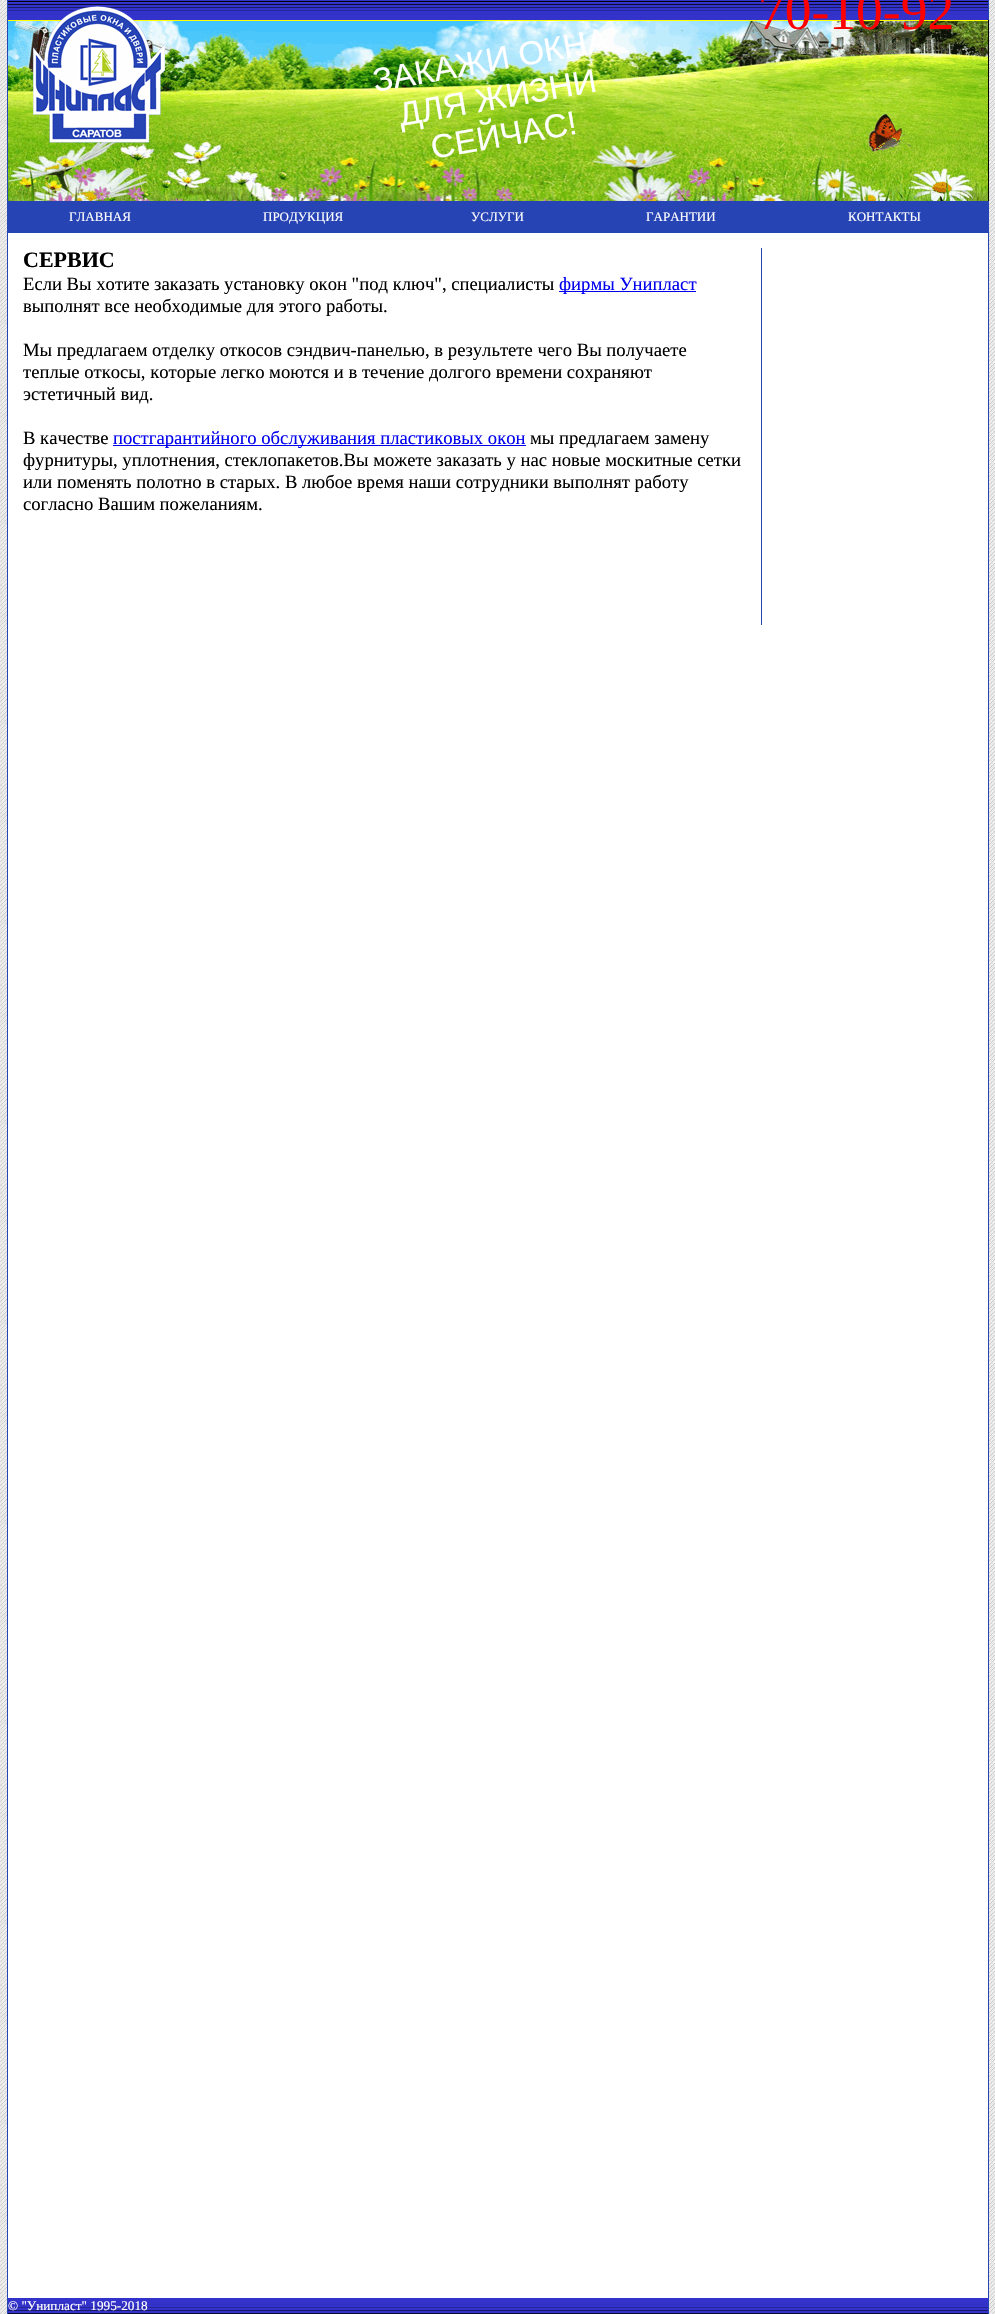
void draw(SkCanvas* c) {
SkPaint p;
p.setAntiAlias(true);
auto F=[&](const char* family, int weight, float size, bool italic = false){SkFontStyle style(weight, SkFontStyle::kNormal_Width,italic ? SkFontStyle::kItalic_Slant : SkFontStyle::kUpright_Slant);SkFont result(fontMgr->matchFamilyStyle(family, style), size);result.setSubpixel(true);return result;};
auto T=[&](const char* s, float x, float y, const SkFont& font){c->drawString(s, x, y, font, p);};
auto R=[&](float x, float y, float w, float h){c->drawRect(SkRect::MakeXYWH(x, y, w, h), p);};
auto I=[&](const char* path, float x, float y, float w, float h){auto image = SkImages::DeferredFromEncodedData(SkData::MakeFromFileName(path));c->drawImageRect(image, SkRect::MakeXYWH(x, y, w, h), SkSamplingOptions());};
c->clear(0xffffffff);
I("1.png",0,0,995,2314);
p.setColor(0xffffffff);
R(8,233,980,2065);
p.setColor(0xff2744b5);
R(988,0,1,2314);
R(7,0,1,2314);
I("2.png",8,0,980,20);
I("3.png",8,21,980,180);
p.setColor(0xffffff00);
R(8,20,981,1);
p.setColor(0xff000000);
R(988,20,1,181);
I("4.png",33,6,132,137);
auto f1 = F("Liberation Sans",400,33.25);
p.setColor(0xffffffff);
c->save();
c->rotate(-10,375,92);
T("ЗАКАЖИ ОКНА",375,92,f1);
c->restore();
c->save();
c->rotate(-10,401,126);
T("ДЛЯ ЖИЗНИ",401,126,f1);
c->restore();
c->save();
c->rotate(-10,433,159);
T("СЕЙЧАС!",433,159,f1);
c->restore();
auto f2 = F("Liberation Serif",400,53.5);
p.setColor(0xffff0000);
T("70-10-92",758,29,f2);
p.setColor(0xff2744b5);
R(8,201,980,32);
auto f3 = F("Liberation Serif",400,13);
p.setColor(0xffffffff);
T("ГЛАВНАЯ",69,221,f3);
T("ПРОДУКЦИЯ",263,221,f3);
T("УСЛУГИ",471,221,f3);
T("ГАРАНТИИ",646,221,f3);
T("КОНТАКТЫ",848,221,f3);
p.setColor(0xff2744b5);
R(761,248,1,377);
auto f4 = F("Liberation Serif",700,22);
p.setColor(0xff000000);
T("СЕРВИС",23,267,f4);
auto f5 = F("Liberation Serif",400,18.65);
T("Если Вы хотите заказать установку окон \"под ключ\", специалисты",23,290,f5);
p.setColor(0xff0000ee);
R(559,291,137,1);
T("фирмы Унипласт",559,290,f5);
p.setColor(0xff000000);
T("выполнят все необходимые для этого работы.",23,312,f5);
T("Мы предлагаем отделку откосов сэндвич-панелью, в результете чего Вы получаете",23,356,f5);
T("теплые откосы, которые легко моются и в течение долгого времени сохраняют",23,378,f5);
T("эстетичный вид.",23,400,f5);
T("В качестве",23,444,f5);
p.setColor(0xff0000ee);
R(113,445,413,1);
T("постгарантийного обслуживания пластиковых окон",113,444,f5);
p.setColor(0xff000000);
T("мы предлагаем замену",530,444,f5);
T("фурнитуры, уплотнения, стеклопакетов.Вы можете заказать у нас новые москитные сетки",23,466,f5);
T("или поменять полотно в старых. В любое время наши сотрудники выполнят работу",23,488,f5);
T("согласно Вашим пожеланиям.",23,510,f5);
I("5.png",8,2298,980,16);
auto f6 = F("Liberation Serif",400,13.25);
p.setColor(0xffffffff);
T("© \"Унипласт\" 1995-2018",8,2310,f6);
}
